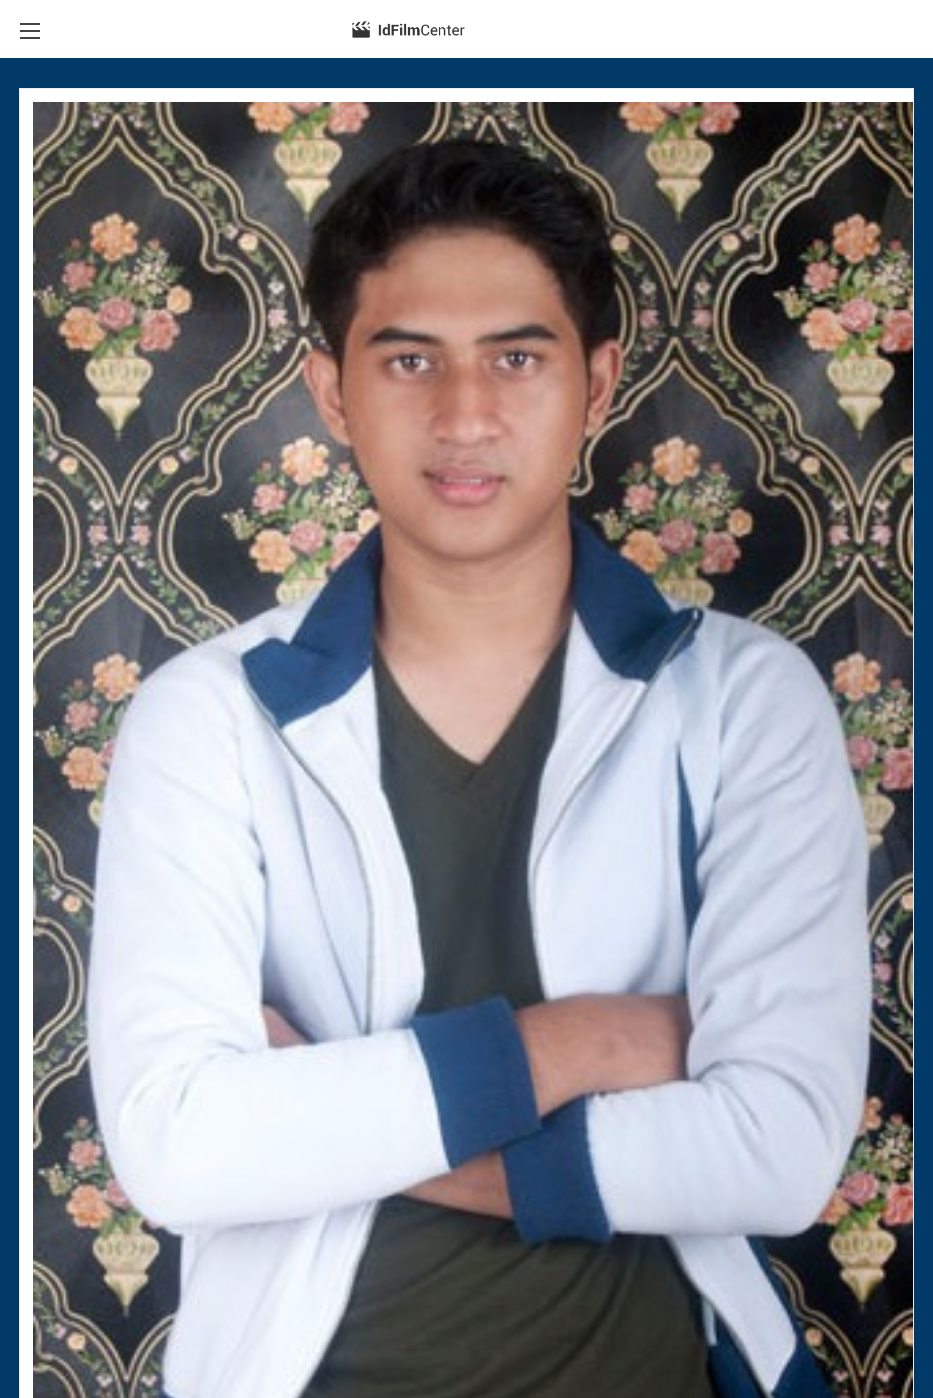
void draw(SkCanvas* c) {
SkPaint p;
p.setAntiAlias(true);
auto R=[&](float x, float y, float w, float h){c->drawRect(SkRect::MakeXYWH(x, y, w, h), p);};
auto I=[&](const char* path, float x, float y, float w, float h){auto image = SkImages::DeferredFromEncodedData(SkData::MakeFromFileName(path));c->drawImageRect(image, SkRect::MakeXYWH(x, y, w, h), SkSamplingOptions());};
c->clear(0xff013969);
p.setColor(0xffffffff);
R(0,0,933,58);
p.setColor(0xff444444);
R(20,37,20,2);
R(20,30,20,2);
R(20,23,20,2);
I("1.png",352,21,113,17);
p.setColor(0xffffffff);
c->drawRect(SkRect::MakeXYWH(19.5,88.5,894,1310),p);
p.setStroke(true);
p.setStrokeWidth(1);
p.setColor(0xffececec);
c->drawRect(SkRect::MakeXYWH(19.5,88.5,894,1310),p);
I("2.png",33,102,880,1296);
}
